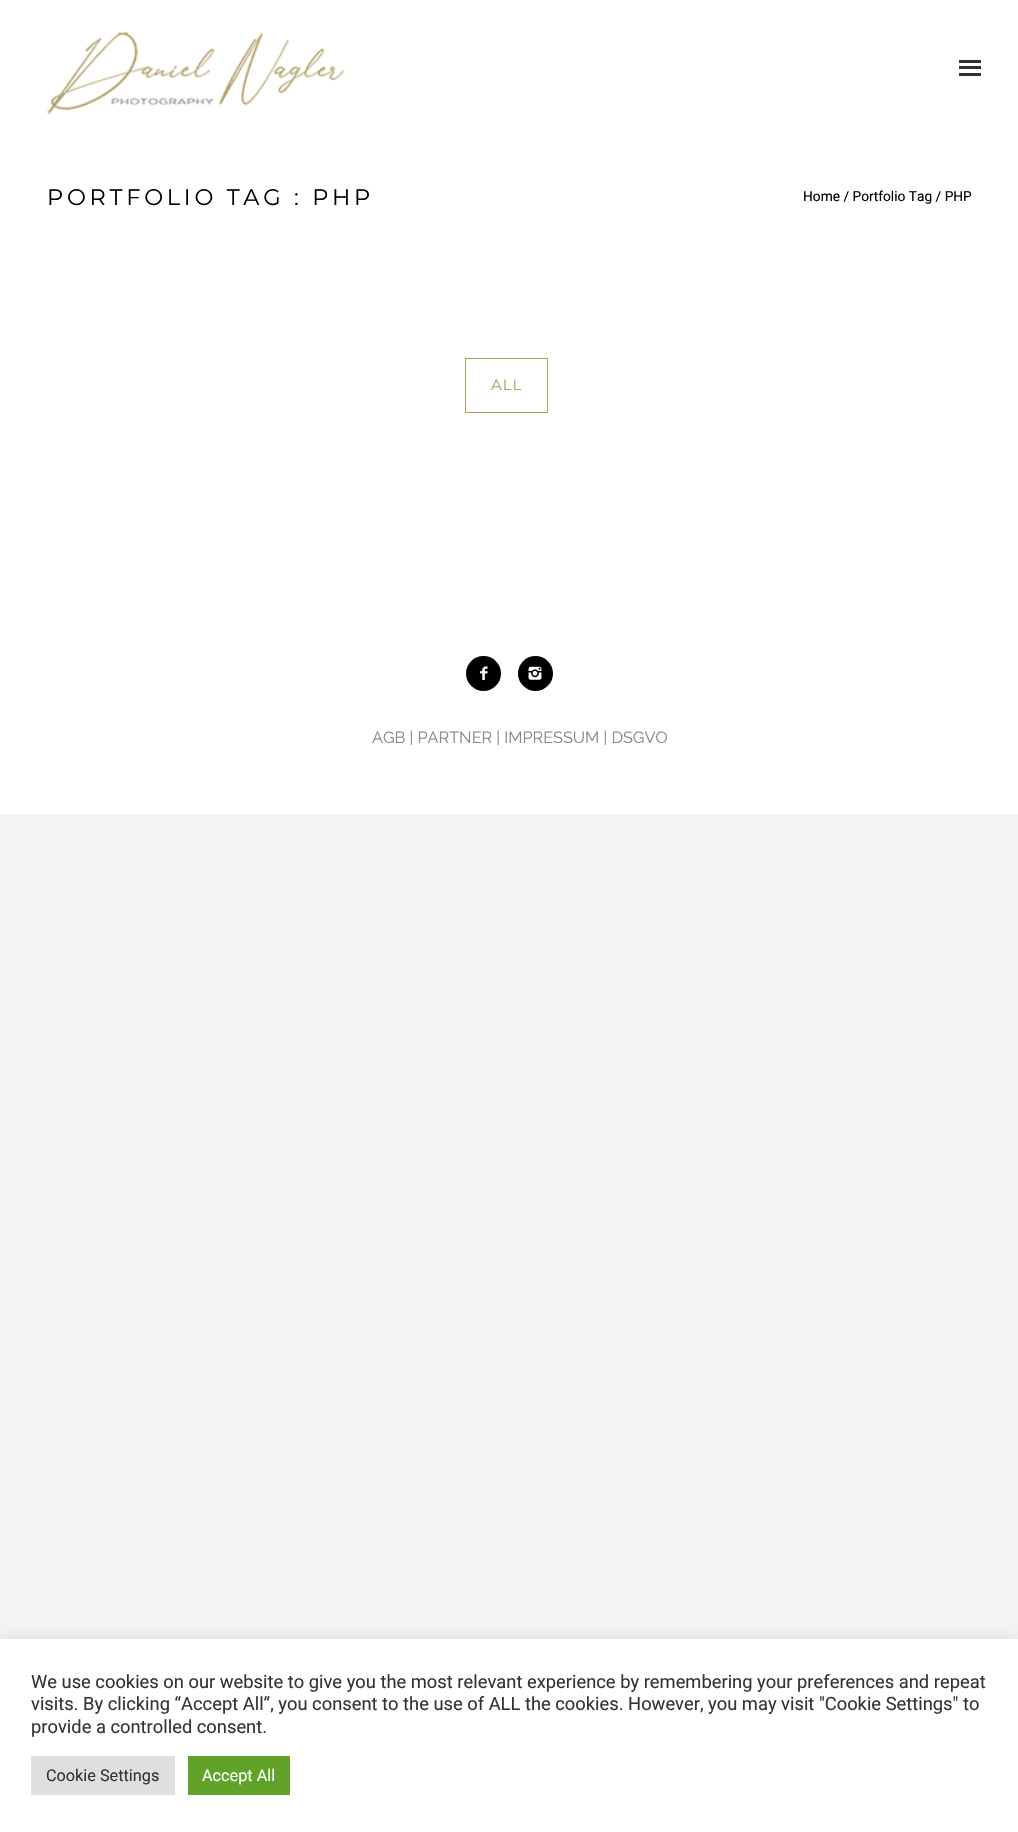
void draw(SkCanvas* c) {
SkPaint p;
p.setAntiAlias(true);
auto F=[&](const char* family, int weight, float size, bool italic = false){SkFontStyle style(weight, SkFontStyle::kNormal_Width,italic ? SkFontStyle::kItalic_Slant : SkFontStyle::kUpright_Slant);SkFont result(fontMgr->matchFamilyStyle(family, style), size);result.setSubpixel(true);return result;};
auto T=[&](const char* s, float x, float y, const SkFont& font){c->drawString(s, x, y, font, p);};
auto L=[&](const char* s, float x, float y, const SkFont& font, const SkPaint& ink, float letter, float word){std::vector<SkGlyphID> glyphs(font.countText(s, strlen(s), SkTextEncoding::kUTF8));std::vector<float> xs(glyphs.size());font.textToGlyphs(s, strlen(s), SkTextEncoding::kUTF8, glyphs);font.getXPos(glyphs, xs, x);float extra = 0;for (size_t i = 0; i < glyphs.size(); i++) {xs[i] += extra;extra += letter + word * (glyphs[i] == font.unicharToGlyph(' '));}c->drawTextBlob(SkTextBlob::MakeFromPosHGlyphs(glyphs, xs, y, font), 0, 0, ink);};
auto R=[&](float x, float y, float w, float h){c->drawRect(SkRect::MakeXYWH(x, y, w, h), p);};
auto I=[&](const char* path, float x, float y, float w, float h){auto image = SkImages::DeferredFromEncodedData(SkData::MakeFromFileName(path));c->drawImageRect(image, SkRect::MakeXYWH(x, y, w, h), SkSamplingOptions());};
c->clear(0xfff2f3f5);
p.setColor(0xffffffff);
R(0,0,1018,814);
I("1.png",47,32,297,82);
p.setColor(0xff323232);
R(959,60,22,3);
R(959,66,22,3);
R(959,73,22,3);
auto f1 = F("Montserrat",400,22.5);
p.setColor(0xff000000);
L("PORTFOLIO TAG : PHP",47,205,f1,p,3.75,0);
auto f2 = F("Roboto",400,13.75);
T("Home / Portfolio Tag / PHP",803,201,f2);
p.setStroke(true);
p.setStrokeWidth(1);
p.setColor(0xffaf9f66);
c->drawRect(SkRect::MakeXYWH(465.5,358.5,82,54),p);
auto f3 = F("Montserrat",400,15);
p.setStroke(false);
L("ALL",491,390,f3,p,1,0);
p.setColor(0xff000000);
c->drawCircle(483.5,673.5,17.5,p);
I("2.png",480,666,8,14);
c->drawCircle(535.5,673.5,17.5,p);
I("3.png",528,666,14,14);
auto f4 = F("Raleway",400,16.25);
p.setColor(0xff888888);
T("AGB | PARTNER | IMPRESSUM | DSGVO",372,743,f4);
p.setColor(0x4dacabab);
p.setMaskFilter(SkMaskFilter::MakeBlur(kNormal_SkBlurStyle, 6));
c->drawRect(SkRect::MakeXYWH(0,1638,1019,193),p);
p.setMaskFilter(nullptr);
p.setColor(0xffffffff);
R(0,1639,1018,193);
auto f5 = F("Roboto",400,18.33);
p.setColor(0xff333333);
T("We use cookies on our website to give you the most relevant experience by remembering your preferences and repeat",31,1688,f5);
T("visits. By clicking “Accept All”, you consent to the use of ALL the cookies. However, you may visit \"Cookie Settings\" to",31,1710,f5);
T("provide a controlled consent.",31,1733,f5);
p.setColor(0xffdedfe0);
R(31,1756,144,39);
auto f6 = F("Roboto",400,16.25);
p.setColor(0xff333333);
T("Cookie Settings",46,1781,f6);
p.setColor(0xff61a229);
R(188,1756,102,39);
p.setColor(0xffffffff);
T("Accept All",202,1781,f6);
}
